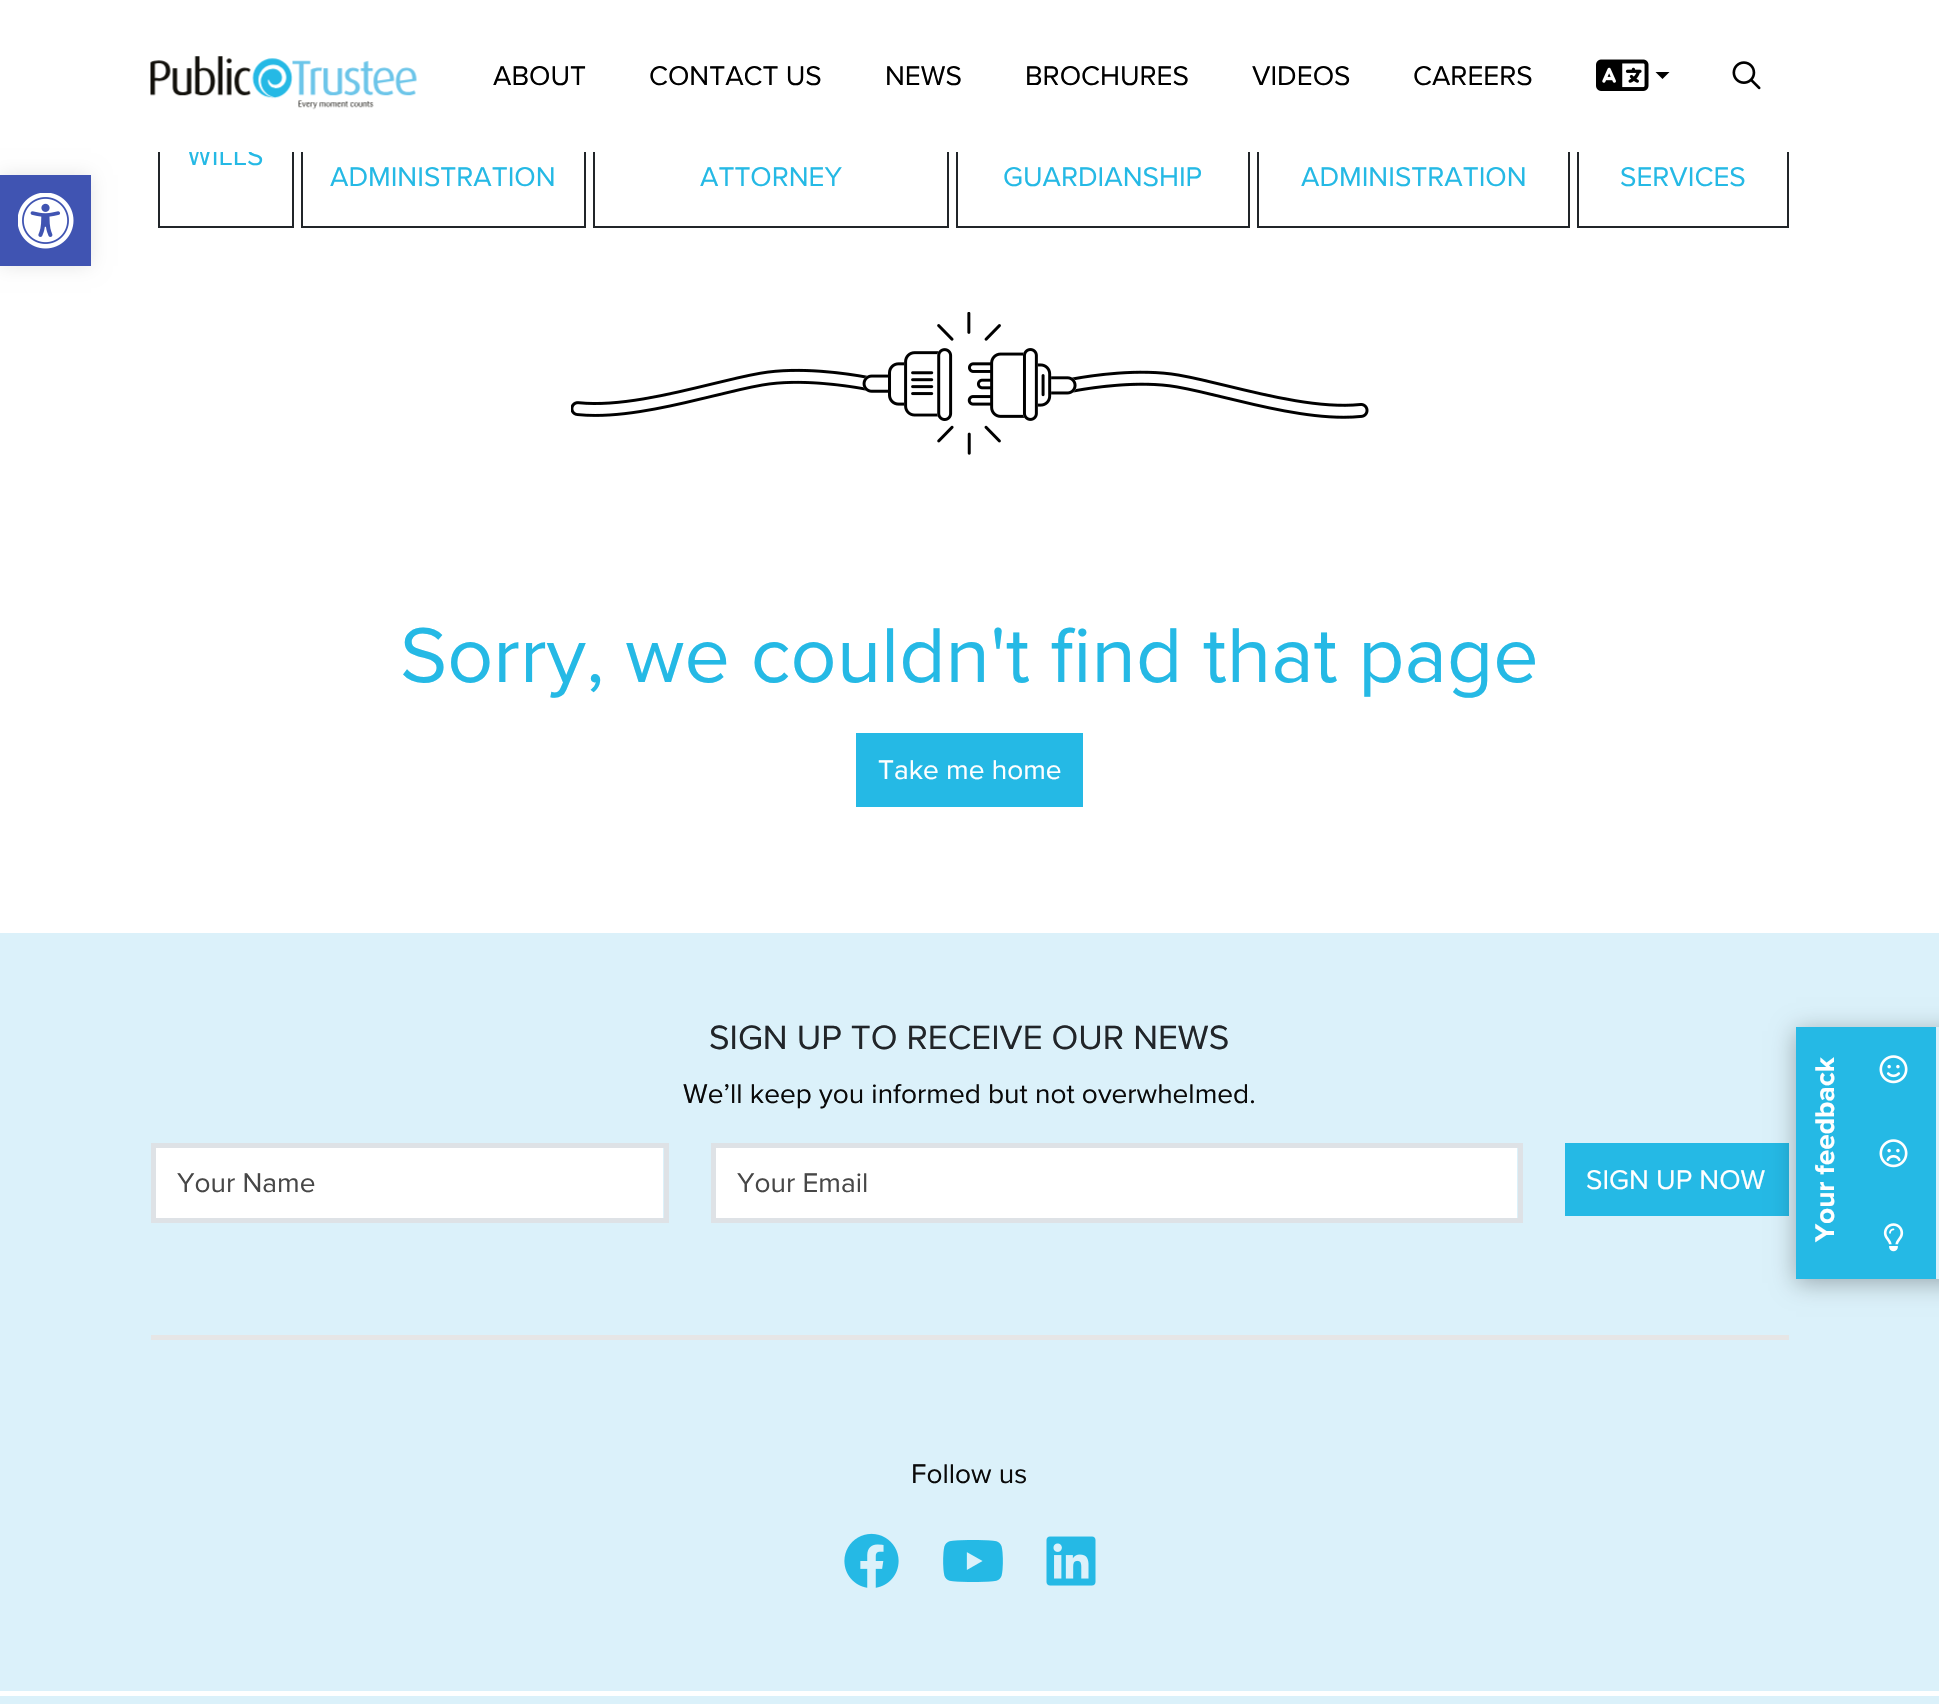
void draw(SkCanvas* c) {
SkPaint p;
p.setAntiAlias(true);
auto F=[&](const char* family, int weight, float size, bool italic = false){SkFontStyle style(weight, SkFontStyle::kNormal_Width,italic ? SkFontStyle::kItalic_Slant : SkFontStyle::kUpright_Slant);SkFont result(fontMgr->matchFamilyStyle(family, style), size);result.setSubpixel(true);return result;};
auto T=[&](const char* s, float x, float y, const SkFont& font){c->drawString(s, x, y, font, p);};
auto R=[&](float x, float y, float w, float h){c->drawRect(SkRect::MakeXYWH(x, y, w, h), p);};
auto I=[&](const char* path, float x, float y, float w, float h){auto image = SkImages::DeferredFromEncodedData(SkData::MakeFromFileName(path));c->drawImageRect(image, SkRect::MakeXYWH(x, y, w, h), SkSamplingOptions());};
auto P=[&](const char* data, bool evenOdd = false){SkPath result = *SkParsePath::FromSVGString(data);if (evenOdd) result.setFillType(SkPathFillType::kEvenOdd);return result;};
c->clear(0xffffffff);
p.setStroke(true);
p.setStrokeWidth(2);
p.setColor(0xff212529);
c->drawRect(SkRect::MakeXYWH(159,85,134,142),p);
auto f1 = F("Proxima Nova",400,28);
p.setStroke(false);
p.setColor(0xff25b9e5);
T("WILLS",187,165,f1);
p.setStroke(true);
p.setColor(0xff212529);
c->drawRect(SkRect::MakeXYWH(302,85,283,142),p);
c->drawRect(SkRect::MakeXYWH(594,85,354,142),p);
c->drawRect(SkRect::MakeXYWH(957,85,292,142),p);
c->drawRect(SkRect::MakeXYWH(1258,85,311,142),p);
c->drawRect(SkRect::MakeXYWH(1578,85,210,142),p);
p.setStroke(false);
p.setColor(0xffffffff);
R(158,84,1631,68);
I("1.png",150,56,267,54);
p.setColor(0xff000000);
T("ABOUT",493,85,f1);
T("CONTACT US",649,85,f1);
T("NEWS",885,85,f1);
T("BROCHURES",1025,85,f1);
T("VIDEOS",1252,85,f1);
T("CAREERS",1413,85,f1);
I("2.png",1596,59,53,32);
c->drawPath(P("M1655.5 72h14l-7 7z"),p);
I("3.png",1732,61,29,29);
p.setColor(0x1a000000);
p.setMaskFilter(SkMaskFilter::MakeBlur(kNormal_SkBlurStyle, 9));
c->drawRect(SkRect::MakeXYWH(0,175,91,91),p);
p.setMaskFilter(nullptr);
p.setColor(0xff4054b2);
R(0,175,91,91);
I("4.png",18,193,56,56);
p.setColor(0xff25b9e5);
T("ADMINISTRATION",330,186,f1);
T("ATTORNEY",700,186,f1);
T("GUARDIANSHIP",1003,186,f1);
T("ADMINISTRATION",1301,186,f1);
T("SERVICES",1620,186,f1);
I("5.png",571,312,798,143);
auto f2 = F("Proxima Nova",400,80.6);
T("Sorry, we couldn't find that page",400,682,f2);
R(856,733,227,74);
p.setColor(0xffffffff);
T("Take me home",878,779,f1);
p.setColor(0xffdbf1fa);
R(0,933,1939,758);
p.setColor(0xffe6e6e6);
R(151,1335,1638,5);
auto f3 = F("Proxima Nova",400,35);
p.setColor(0xff212529);
T("SIGN UP TO RECEIVE OUR NEWS",709,1049,f3);
p.setColor(0xff0a0a0a);
T("We’ll keep you informed but not overwhelmed.",683,1103,f1);
p.setColor(0xffffffff);
R(156,1148,507,70);
p.setStroke(true);
p.setStrokeWidth(5);
p.setColor(0xffdee2e6);
c->drawRect(SkRect::MakeXYWH(153.5,1145.5,513,75),p);
p.setStroke(false);
p.setColor(0xff474747);
T("Your Name",177,1192,f1);
p.setColor(0xffffffff);
R(716,1148,801,70);
p.setStroke(true);
p.setColor(0xffdee2e6);
c->drawRect(SkRect::MakeXYWH(713.5,1145.5,807,75),p);
p.setStroke(false);
p.setColor(0xff474747);
T("Your Email",737,1192,f1);
p.setColor(0xff25b9e5);
R(1565,1143,224,73);
p.setColor(0xffffffff);
T("SIGN UP NOW",1586,1189,f1);
p.setColor(0xff0a0a0a);
T("Follow us",911,1483,f1);
I("6.png",844,1533,55,55);
I("7.png",943,1540,60,42);
I("8.png",1046,1536,50,50);
p.setColor(0x4d000000);
p.setMaskFilter(SkMaskFilter::MakeBlur(kNormal_SkBlurStyle, 11.5));
c->drawRect(SkRect::MakeXYWH(1796,1031,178,252),p);
p.setMaskFilter(nullptr);
p.setColor(0xffdbf1fa);
R(1936,1027,3,252);
p.setColor(0xff25b9e5);
R(1796,1027,56,252);
auto f4 = F("Proxima Nova",700,28);
p.setColor(0xffffffff);
c->save();
c->rotate(-90,1834,1242);
T("Your feedback",1834,1242,f4);
c->restore();
p.setColor(0xff25b9e5);
R(1852,1027,84,252);
I("9.png",1879,1055,29,29);
I("10.png",1879,1139,29,29);
I("11.png",1883,1223,21,29);
p.setColor(0xffdbf1fa);
R(0,1696,1939,8);
}
